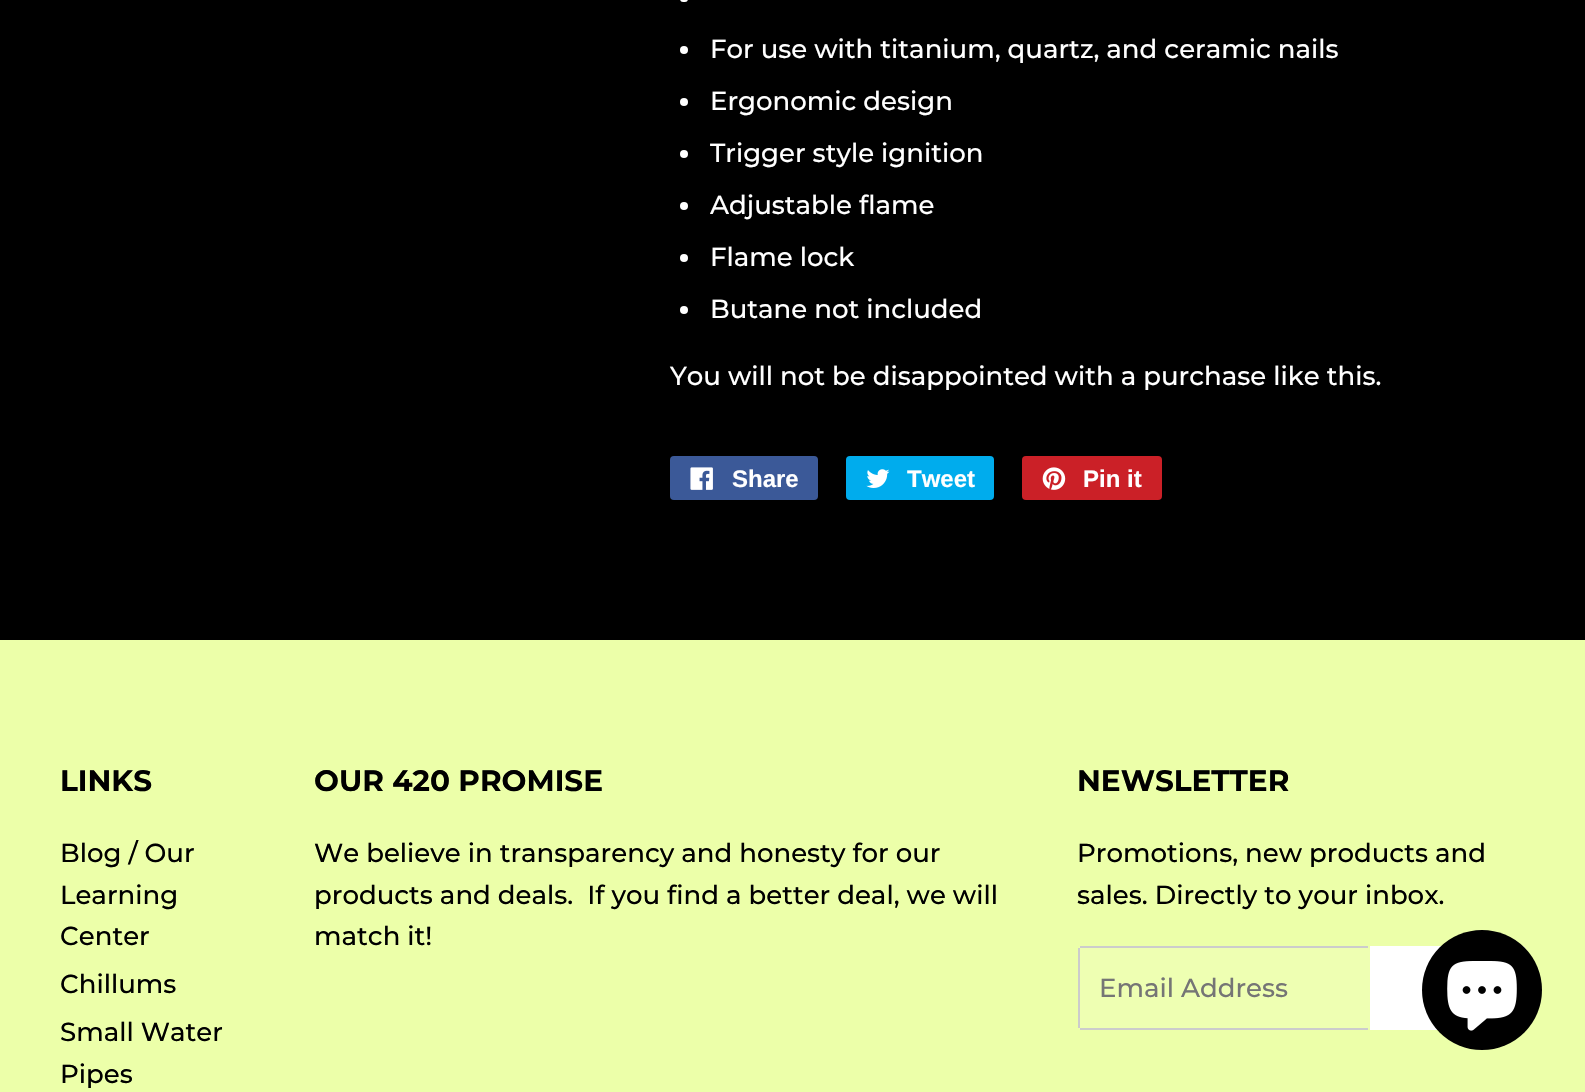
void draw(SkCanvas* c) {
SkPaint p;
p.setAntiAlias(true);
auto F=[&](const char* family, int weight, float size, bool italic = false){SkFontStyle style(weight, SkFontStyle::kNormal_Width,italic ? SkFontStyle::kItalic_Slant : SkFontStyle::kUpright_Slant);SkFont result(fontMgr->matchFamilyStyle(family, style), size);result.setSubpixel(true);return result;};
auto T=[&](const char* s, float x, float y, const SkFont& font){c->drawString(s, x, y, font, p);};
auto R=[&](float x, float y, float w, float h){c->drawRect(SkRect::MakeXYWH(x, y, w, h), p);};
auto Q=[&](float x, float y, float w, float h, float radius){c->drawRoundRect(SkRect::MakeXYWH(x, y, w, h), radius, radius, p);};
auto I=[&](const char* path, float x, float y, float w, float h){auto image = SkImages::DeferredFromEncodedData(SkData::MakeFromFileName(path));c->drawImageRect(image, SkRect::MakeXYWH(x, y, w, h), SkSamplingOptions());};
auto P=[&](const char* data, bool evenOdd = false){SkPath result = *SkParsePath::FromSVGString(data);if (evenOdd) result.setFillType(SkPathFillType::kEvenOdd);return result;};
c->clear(0xff000000);
p.setColor(0xffffffff);
Q(680,-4,8,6,4);
c->drawCircle(684,50,4,p);
auto f1 = F("Montserrat",500,26);
T("For use with titanium, quartz, and ceramic nails",710,58,f1);
c->drawCircle(684,102,4,p);
T("Ergonomic design",710,110,f1);
c->drawCircle(684,154,4,p);
T("Trigger style ignition",710,162,f1);
c->drawCircle(684,206,4,p);
T("Adjustable flame",710,214,f1);
c->drawCircle(684,258,4,p);
T("Flame lock",710,266,f1);
c->drawCircle(684,310,4,p);
T("Butane not included",710,318,f1);
T("You will not be disappointed with a purchase like this.",670,385,f1);
p.setColor(0xff3b5998);
Q(670,456,148,44,4);
I("1.png",690,467,23,23);
auto f2 = F("Liberation Sans",700,24);
p.setColor(0xffffffff);
T("Share",732,487,f2);
p.setColor(0xff00aced);
Q(846,456,148,44,4);
I("2.png",866,469,24,19);
p.setColor(0xffffffff);
T("Tweet",907,487,f2);
p.setColor(0xffcb2027);
Q(1022,456,140,44,4);
I("3.png",1042,467,24,23);
p.setColor(0xffffffff);
T("Pin it",1083,487,f2);
p.setColor(0xffecffa9);
R(0,640,1585,452);
auto f3 = F("Montserrat",700,29.5);
p.setColor(0xff000000);
T("LINKS",60,791,f3);
T("Blog / Our",60,862,f1);
T("Learning",60,904,f1);
T("Center",60,945,f1);
T("Chillums",60,993,f1);
T("Small Water",60,1041,f1);
T("Pipes",60,1083,f1);
T("OUR 420 PROMISE",314,791,f3);
T("We believe in transparency and honesty for our",314,862,f1);
T("products and deals.  If you find a better deal, we will",314,904,f1);
T("match it!",314,945,f1);
T("NEWSLETTER",1077,791,f3);
T("Promotions, new products and",1077,862,f1);
T("sales. Directly to your inbox.",1077,904,f1);
p.setColor(0xffeeffb2);
Q(1078,946,292,84,4);
p.setColor(0xffcccccc);
R(1080,946,288,2);
R(1080,1028,288,2);
R(1078,948,2,80);
p.setColor(0xff757575);
T("Email Address",1099,997,f1);
p.setColor(0xffffffff);
c->drawPath(P("M1370 946h152c2 0 4 2 4 4v76c0 2-2 4-4 4h-152z"),p);
p.setColor(0xff000000);
c->drawCircle(1482,990,60,p);
I("4.png",1447,961,70,70);
}
